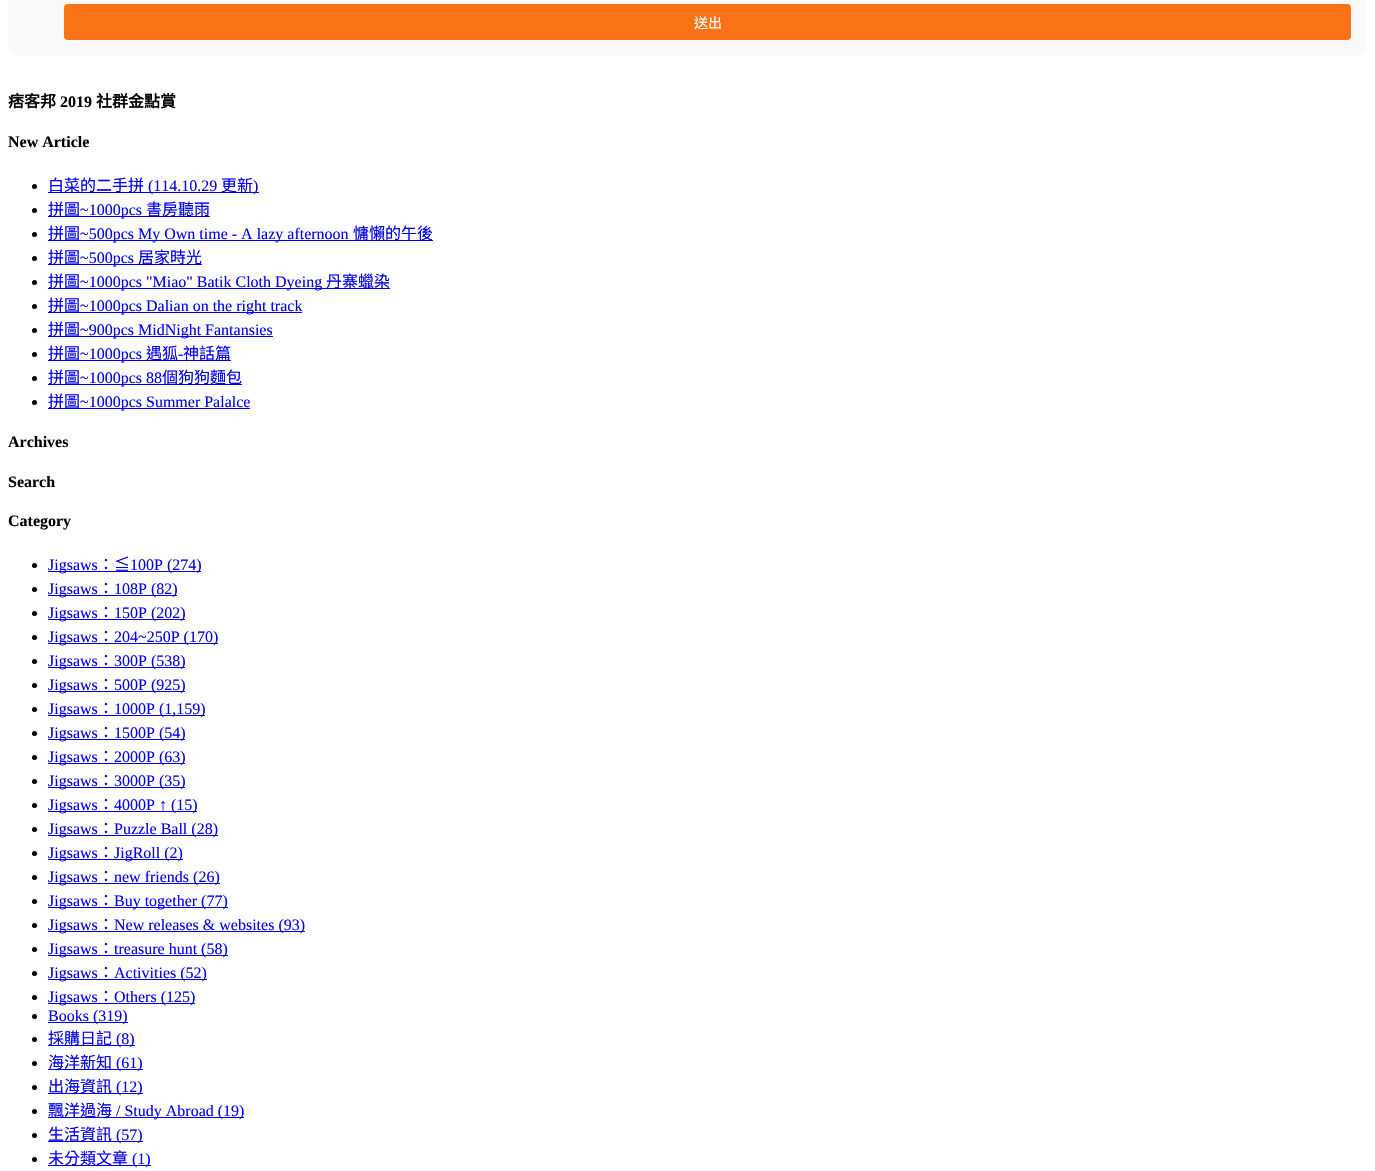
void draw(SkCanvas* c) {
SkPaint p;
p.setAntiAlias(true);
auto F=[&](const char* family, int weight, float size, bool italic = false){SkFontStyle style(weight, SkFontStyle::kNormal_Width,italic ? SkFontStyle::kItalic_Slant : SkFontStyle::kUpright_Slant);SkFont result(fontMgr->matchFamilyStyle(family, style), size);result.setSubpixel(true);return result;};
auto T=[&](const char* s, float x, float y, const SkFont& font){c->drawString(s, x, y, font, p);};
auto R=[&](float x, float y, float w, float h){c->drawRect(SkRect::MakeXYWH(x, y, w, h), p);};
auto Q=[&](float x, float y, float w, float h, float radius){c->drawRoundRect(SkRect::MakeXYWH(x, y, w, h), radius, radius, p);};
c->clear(0xffffffff);
p.setColor(0xfffafafa);
Q(8,-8,1359,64,8);
p.setColor(0xfff97316);
Q(64,4,1287,36,4);
auto f1 = F("Noto Sans CJK TC",400,14);
p.setColor(0xffffffff);
T("送出",694,28,f1);
auto f2 = F("Noto Sans CJK TC",700,16);
p.setColor(0xff000000);
T("痞客邦",8,107,f2);
auto f3 = F("Liberation Serif",700,16);
T("2019",60,107,f3);
T("社群金點賞",96,107,f2);
T("New Article",8,147,f3);
c->drawCircle(34.5,186.5,2.5,p);
p.setColor(0xff0000ee);
R(48,192,211,1);
auto f4 = F("Noto Sans CJK TC",400,16);
T("白菜的二手拼",48,191,f4);
auto f5 = F("Liberation Serif",400,16);
T("(114.10.29",148,191,f5);
T("更新",221,191,f4);
T(")",253,191,f5);
p.setColor(0xff000000);
c->drawCircle(34.5,210.5,2.5,p);
p.setColor(0xff0000ee);
R(48,216,162,1);
T("拼圖",48,215,f4);
T("~1000pcs",80,215,f5);
T("書房聽雨",146,215,f4);
p.setColor(0xff000000);
c->drawCircle(34.5,234.5,2.5,p);
p.setColor(0xff0000ee);
R(48,240,385,1);
T("拼圖",48,239,f4);
T("~500pcs My Own time - A lazy afternoon",80,239,f5);
T("慵懶的午後",353,239,f4);
p.setColor(0xff000000);
c->drawCircle(34.5,258.5,2.5,p);
p.setColor(0xff0000ee);
R(48,264,154,1);
T("拼圖",48,263,f4);
T("~500pcs",80,263,f5);
T("居家時光",138,263,f4);
p.setColor(0xff000000);
c->drawCircle(34.5,282.5,2.5,p);
p.setColor(0xff0000ee);
R(48,288,342,1);
T("拼圖",48,287,f4);
T("~1000pcs \"Miao\" Batik Cloth Dyeing",80,287,f5);
T("丹寨蠟染",326,287,f4);
p.setColor(0xff000000);
c->drawCircle(34.5,306.5,2.5,p);
p.setColor(0xff0000ee);
R(48,312,254,1);
T("拼圖",48,311,f4);
T("~1000pcs Dalian on the right track",80,311,f5);
p.setColor(0xff000000);
c->drawCircle(34.5,330.5,2.5,p);
p.setColor(0xff0000ee);
R(48,336,225,1);
T("拼圖",48,335,f4);
T("~900pcs MidNight Fantansies",80,335,f5);
p.setColor(0xff000000);
c->drawCircle(34.5,354.5,2.5,p);
p.setColor(0xff0000ee);
R(48,360,183,1);
T("拼圖",48,359,f4);
T("~1000pcs",80,359,f5);
T("遇狐",146,359,f4);
T("-",178,359,f5);
T("神話篇",183,359,f4);
p.setColor(0xff000000);
c->drawCircle(34.5,378.5,2.5,p);
p.setColor(0xff0000ee);
R(48,384,194,1);
T("拼圖",48,383,f4);
T("~1000pcs 88",80,383,f5);
T("個狗狗麵包",162,383,f4);
p.setColor(0xff000000);
c->drawCircle(34.5,402.5,2.5,p);
p.setColor(0xff0000ee);
R(48,408,202,1);
T("拼圖",48,407,f4);
T("~1000pcs Summer Palalce",80,407,f5);
p.setColor(0xff000000);
T("Archives",8,447,f3);
T("Search",8,487,f3);
T("Category",8,526,f3);
c->drawCircle(34.5,565.5,2.5,p);
p.setColor(0xff0000ee);
R(48,571,153,1);
T("Jigsaws",48,570,f5);
T("：≦",98,570,f4);
T("100P (274)",130,570,f5);
p.setColor(0xff000000);
c->drawCircle(34.5,589.5,2.5,p);
p.setColor(0xff0000ee);
R(48,595,129,1);
T("Jigsaws",48,594,f5);
T("：",98,594,f4);
T("108P (82)",114,594,f5);
p.setColor(0xff000000);
c->drawCircle(34.5,613.5,2.5,p);
p.setColor(0xff0000ee);
R(48,619,137,1);
T("Jigsaws",48,618,f5);
T("：",98,618,f4);
T("150P (202)",114,618,f5);
p.setColor(0xff000000);
c->drawCircle(34.5,637.5,2.5,p);
p.setColor(0xff0000ee);
R(48,643,170,1);
T("Jigsaws",48,642,f5);
T("：",98,642,f4);
T("204~250P (170)",114,642,f5);
p.setColor(0xff000000);
c->drawCircle(34.5,661.5,2.5,p);
p.setColor(0xff0000ee);
R(48,667,137,1);
T("Jigsaws",48,666,f5);
T("：",98,666,f4);
T("300P (538)",114,666,f5);
p.setColor(0xff000000);
c->drawCircle(34.5,685.5,2.5,p);
p.setColor(0xff0000ee);
R(48,691,137,1);
T("Jigsaws",48,690,f5);
T("：",98,690,f4);
T("500P (925)",114,690,f5);
p.setColor(0xff000000);
c->drawCircle(34.5,709.5,2.5,p);
p.setColor(0xff0000ee);
R(48,715,157,1);
T("Jigsaws",48,714,f5);
T("：",98,714,f4);
T("1000P (1,159)",114,714,f5);
p.setColor(0xff000000);
c->drawCircle(34.5,733.5,2.5,p);
p.setColor(0xff0000ee);
R(48,739,137,1);
T("Jigsaws",48,738,f5);
T("：",98,738,f4);
T("1500P (54)",114,738,f5);
p.setColor(0xff000000);
c->drawCircle(34.5,757.5,2.5,p);
p.setColor(0xff0000ee);
R(48,763,137,1);
T("Jigsaws",48,762,f5);
T("：",98,762,f4);
T("2000P (63)",114,762,f5);
p.setColor(0xff000000);
c->drawCircle(34.5,781.5,2.5,p);
p.setColor(0xff0000ee);
R(48,787,137,1);
T("Jigsaws",48,786,f5);
T("：",98,786,f4);
T("3000P (35)",114,786,f5);
p.setColor(0xff000000);
c->drawCircle(34.5,805.5,2.5,p);
p.setColor(0xff0000ee);
R(48,811,149,1);
T("Jigsaws",48,810,f5);
T("：",98,810,f4);
T("4000P ↑ (15)",114,810,f5);
p.setColor(0xff000000);
c->drawCircle(34.5,829.5,2.5,p);
p.setColor(0xff0000ee);
R(48,835,170,1);
T("Jigsaws",48,834,f5);
T("：",98,834,f4);
T("Puzzle Ball (28)",114,834,f5);
p.setColor(0xff000000);
c->drawCircle(34.5,853.5,2.5,p);
p.setColor(0xff0000ee);
R(48,859,135,1);
T("Jigsaws",48,858,f5);
T("：",98,858,f4);
T("JigRoll (2)",114,858,f5);
p.setColor(0xff000000);
c->drawCircle(34.5,877.5,2.5,p);
p.setColor(0xff0000ee);
R(48,883,172,1);
T("Jigsaws",48,882,f5);
T("：",98,882,f4);
T("new friends (26)",114,882,f5);
p.setColor(0xff000000);
c->drawCircle(34.5,901.5,2.5,p);
p.setColor(0xff0000ee);
R(48,907,180,1);
T("Jigsaws",48,906,f5);
T("：",98,906,f4);
T("Buy together (77)",114,906,f5);
p.setColor(0xff000000);
c->drawCircle(34.5,925.5,2.5,p);
p.setColor(0xff0000ee);
R(48,931,257,1);
T("Jigsaws",48,930,f5);
T("：",98,930,f4);
T("New releases & websites (93)",114,930,f5);
p.setColor(0xff000000);
c->drawCircle(34.5,949.5,2.5,p);
p.setColor(0xff0000ee);
R(48,955,180,1);
T("Jigsaws",48,954,f5);
T("：",98,954,f4);
T("treasure hunt (58)",114,954,f5);
p.setColor(0xff000000);
c->drawCircle(34.5,973.5,2.5,p);
p.setColor(0xff0000ee);
R(48,979,159,1);
T("Jigsaws",48,978,f5);
T("：",98,978,f4);
T("Activities (52)",114,978,f5);
p.setColor(0xff000000);
c->drawCircle(34.5,997.5,2.5,p);
p.setColor(0xff0000ee);
R(48,1003,147,1);
T("Jigsaws",48,1002,f5);
T("：",98,1002,f4);
T("Others (125)",114,1002,f5);
p.setColor(0xff000000);
c->drawCircle(34.5,1016.5,2.5,p);
p.setColor(0xff0000ee);
R(48,1022,80,1);
T("Books (319)",48,1021,f5);
p.setColor(0xff000000);
c->drawCircle(34.5,1039.5,2.5,p);
p.setColor(0xff0000ee);
R(48,1045,87,1);
T("採購日記",48,1044,f4);
T("(8)",116,1044,f5);
p.setColor(0xff000000);
c->drawCircle(34.5,1063.5,2.5,p);
p.setColor(0xff0000ee);
R(48,1069,95,1);
T("海洋新知",48,1068,f4);
T("(61)",116,1068,f5);
p.setColor(0xff000000);
c->drawCircle(34.5,1087.5,2.5,p);
p.setColor(0xff0000ee);
R(48,1093,95,1);
T("出海資訊",48,1092,f4);
T("(12)",116,1092,f5);
p.setColor(0xff000000);
c->drawCircle(34.5,1111.5,2.5,p);
p.setColor(0xff0000ee);
R(48,1117,196,1);
T("飄洋過海",48,1116,f4);
T("/ Study Abroad (19)",116,1116,f5);
p.setColor(0xff000000);
c->drawCircle(34.5,1135.5,2.5,p);
p.setColor(0xff0000ee);
R(48,1141,95,1);
T("生活資訊",48,1140,f4);
T("(57)",116,1140,f5);
p.setColor(0xff000000);
c->drawCircle(34.5,1159.5,2.5,p);
p.setColor(0xff0000ee);
R(48,1165,103,1);
T("未分類文章",48,1164,f4);
T("(1)",132,1164,f5);
}
